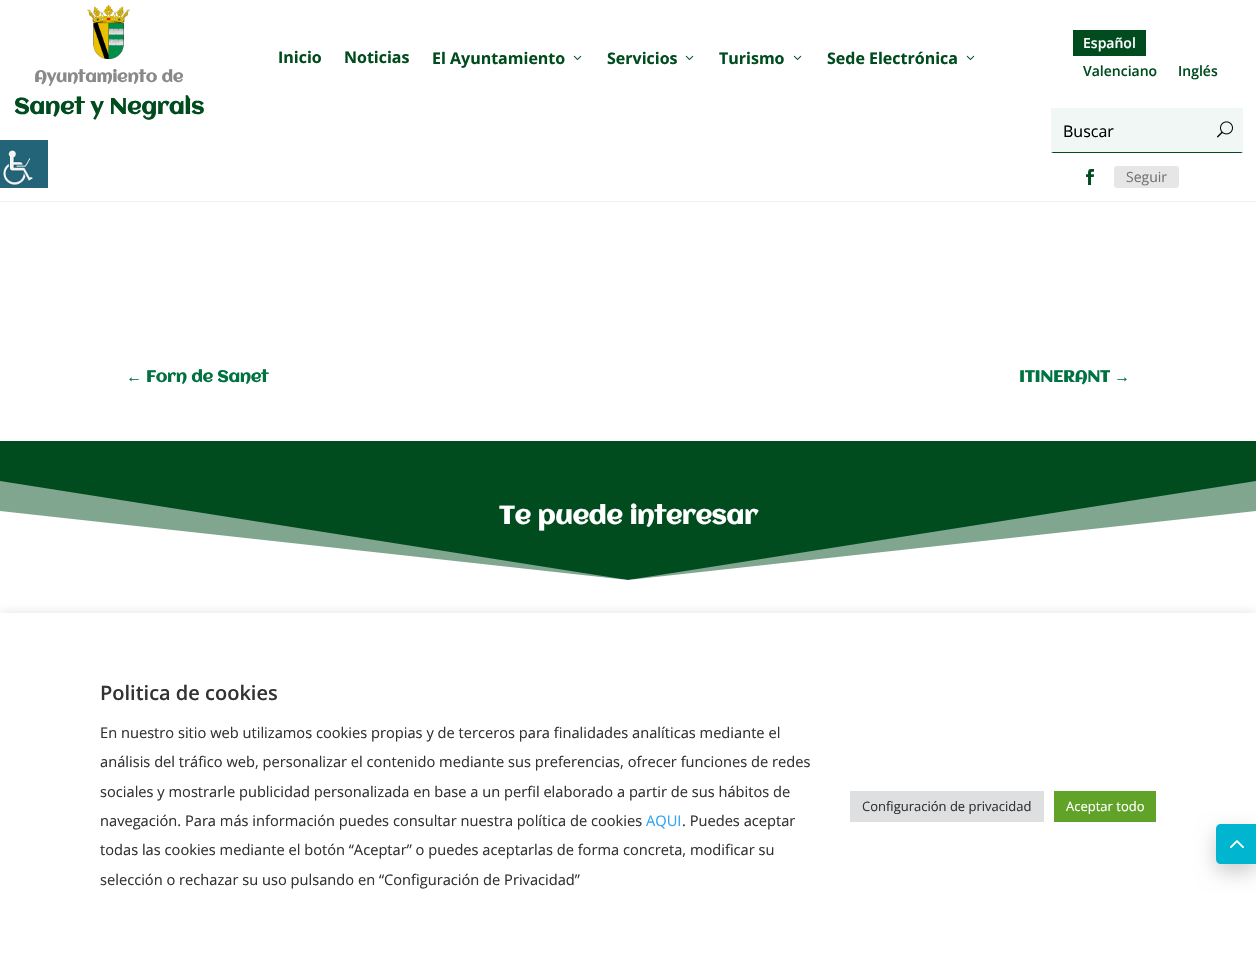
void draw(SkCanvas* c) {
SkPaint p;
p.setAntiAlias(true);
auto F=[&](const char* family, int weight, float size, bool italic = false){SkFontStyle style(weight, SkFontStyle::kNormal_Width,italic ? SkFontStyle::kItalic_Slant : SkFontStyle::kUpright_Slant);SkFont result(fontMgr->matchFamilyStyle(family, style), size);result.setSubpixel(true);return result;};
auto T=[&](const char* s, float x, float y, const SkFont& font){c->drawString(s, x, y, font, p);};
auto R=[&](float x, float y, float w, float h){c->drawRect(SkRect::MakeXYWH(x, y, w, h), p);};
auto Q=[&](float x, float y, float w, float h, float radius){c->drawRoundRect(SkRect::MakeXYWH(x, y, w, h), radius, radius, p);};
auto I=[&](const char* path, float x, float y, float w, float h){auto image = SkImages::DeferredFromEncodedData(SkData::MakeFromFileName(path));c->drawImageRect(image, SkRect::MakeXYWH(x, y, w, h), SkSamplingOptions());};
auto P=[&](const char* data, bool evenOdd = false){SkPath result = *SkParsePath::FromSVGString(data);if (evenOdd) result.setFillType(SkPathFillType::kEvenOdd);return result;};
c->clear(0xffffffff);
p.setColor(0xffebf3f2);
R(0,201,1256,1);
auto f1 = F("Open Sans",700,16);
p.setColor(0xff004c1e);
T("Inicio",278,63,f1);
T("Noticias",344,63,f1);
T("El Ayuntamiento",432,64,f1);
I("1.png",573,55,9,5);
T("Servicios",607,64,f1);
I("1.png",685,55,9,5);
T("Turismo",719,64,f1);
I("1.png",793,55,9,5);
T("Sede Electrónica",827,64,f1);
I("1.png",966,55,9,5);
R(1073,30,73,26);
auto f2 = F("Open Sans",600,14);
p.setColor(0xffffffff);
T("Español",1083,48,f2);
p.setColor(0xff004c1e);
T("Valenciano",1083,76,f2);
T("Inglés",1178,76,f2);
p.setColor(0xfff0f7f4);
R(1051,108,192,45);
p.setColor(0xff004c1e);
c->drawPath(P("M1243 153h-192l2-1h188z"),p);
auto f3 = F("Open Sans",400,16);
p.setColor(0xff000000);
T("Buscar",1063,137,f3);
I("2.png",1217,121,16,17);
I("3.png",1086,169,8,16);
p.setColor(0xffe6e6e6);
Q(1114,166,65,22,3);
auto f4 = F("Open Sans",400,14);
p.setColor(0xff737373);
T("Seguir",1126,182,f4);
I("4.png",87,5,43,54);
auto f5 = F("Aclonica",700,16);
p.setColor(0xff898989);
T("Ayuntamiento de",34,82,f5);
auto f6 = F("Aclonica",700,22);
p.setColor(0xff004c1e);
T("Sanet y Negrals",14,114,f6);
auto f7 = F("Liberation Sans",700,16);
p.setColor(0xff007241);
T("←",126,382,f7);
T("Forn de Sanet",146,382,f5);
T("ITINERANT",1019,382,f5);
T("→",1114,382,f7);
p.setColor(0xff004c1e);
R(0,441,1256,139);
p.setColor(0xff80a68f);
c->drawPath(P("M628 580l-628-99v100h1256v-100z"),p);
p.setColor(0xffffffff);
c->drawPath(P("M628 580l-628-69v70h1256v-70z"),p);
auto f8 = F("Aclonica",700,25);
T("Te puede interesar",499,524,f8);
I("5.png",0,140,48,48);
p.setColor(0x4dacabab);
p.setMaskFilter(SkMaskFilter::MakeBlur(kNormal_SkBlurStyle, 5));
c->drawRect(SkRect::MakeXYWH(0,612,1256,351),p);
p.setMaskFilter(nullptr);
p.setColor(0xffffffff);
R(0,613,1256,351);
auto f9 = F("Open Sans",600,20);
p.setColor(0xff333333);
T("Politica de cookies",100,700,f9);
auto f10 = F("Open Sans",400,14.65);
T("En nuestro sitio web utilizamos cookies propias y de terceros para finalidades analíticas mediante el",100,738,f10);
T("análisis del tráfico web, personalizar el contenido mediante sus preferencias, ofrecer funciones de redes",100,767,f10);
T("sociales y mostrarle publicidad personalizada en base a un perfil elaborado a partir de sus hábitos de",100,797,f10);
T("navegación. Para más información puedes consultar nuestra política de cookies",100,826,f10);
p.setColor(0xff2ea3f2);
T("AQUI",646,826,f10);
p.setColor(0xff333333);
T(". Puedes aceptar",682,826,f10);
T("todas las cookies mediante el botón “Aceptar” o puedes aceptarlas de forma concreta, modificar su",100,855,f10);
T("selección o rechazar su uso pulsando en “Configuración de Privacidad”",100,885,f10);
p.setColor(0xffdedfe0);
R(850,791,194,31);
auto f11 = F("Open Sans",400,13);
p.setColor(0xff333333);
T("Configuración de privacidad",862,811,f11);
p.setColor(0xff61a229);
R(1054,791,102,31);
p.setColor(0xffffffff);
T("Aceptar todo",1066,811,f11);
p.setColor(0x33000000);
p.setMaskFilter(SkMaskFilter::MakeBlur(kNormal_SkBlurStyle, 10));
c->drawRoundRect(SkRect::MakeXYWH(1216,832,40,40),5,5,p);
p.setMaskFilter(nullptr);
p.setColor(0xff00b5cf);
c->drawPath(P("M1221 824h35v40h-35c-3 0-5-2-5-5v-30c0-3 2-5 5-5z"),p);
I("6.png",1229,840,15,9);
}
